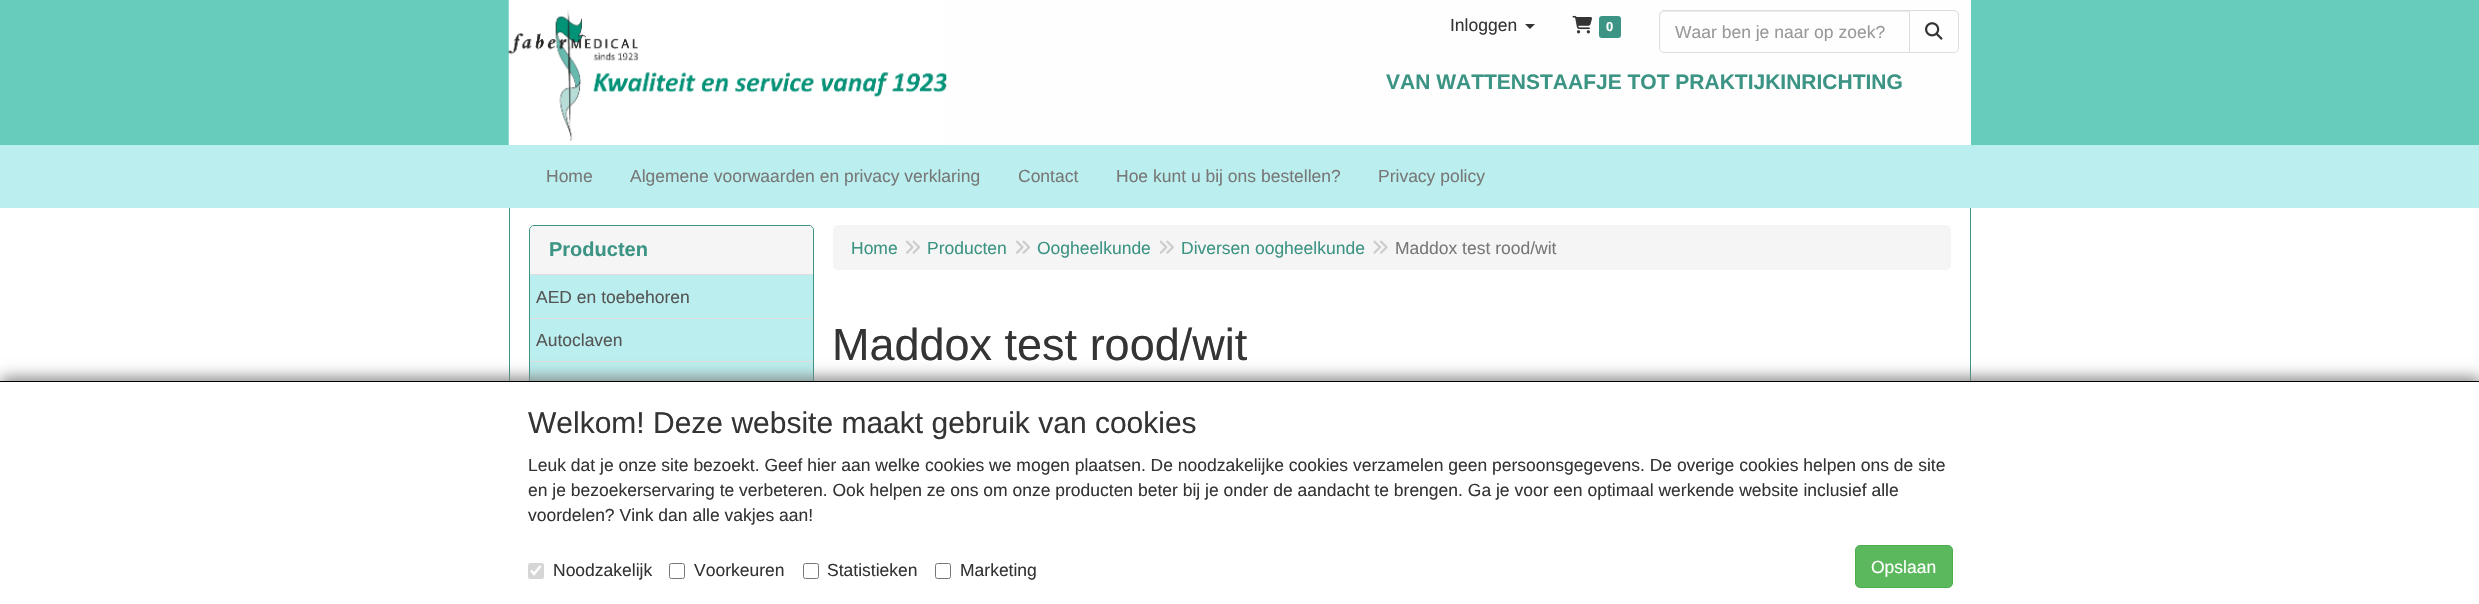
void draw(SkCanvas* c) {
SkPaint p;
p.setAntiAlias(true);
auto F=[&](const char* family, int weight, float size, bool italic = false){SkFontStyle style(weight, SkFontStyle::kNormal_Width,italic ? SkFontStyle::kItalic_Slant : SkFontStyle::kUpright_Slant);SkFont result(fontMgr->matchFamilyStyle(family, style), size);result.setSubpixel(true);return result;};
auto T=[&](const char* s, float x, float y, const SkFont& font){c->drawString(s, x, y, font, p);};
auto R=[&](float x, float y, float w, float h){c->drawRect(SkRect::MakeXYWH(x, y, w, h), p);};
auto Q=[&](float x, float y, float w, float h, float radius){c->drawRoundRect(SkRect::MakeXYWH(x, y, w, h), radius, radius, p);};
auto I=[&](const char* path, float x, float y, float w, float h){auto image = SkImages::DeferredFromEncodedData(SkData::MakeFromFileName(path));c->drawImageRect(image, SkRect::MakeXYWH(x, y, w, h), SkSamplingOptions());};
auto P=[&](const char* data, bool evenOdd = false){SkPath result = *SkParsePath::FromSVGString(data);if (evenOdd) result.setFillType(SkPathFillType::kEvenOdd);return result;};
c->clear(0xffffffff);
p.setColor(0xff66ccbb);
R(0,0,2479,145);
p.setColor(0xfffefefe);
R(509,0,1462,145);
I("1.png",508,0,439,145);
auto f1 = F("Liberation Sans",400,17.5);
p.setColor(0xff343434);
T("Inloggen",1450,31,f1);
c->drawPath(P("M1525 24h10l-5 5z"),p);
I("2.png",1572,15,20,19);
p.setColor(0xff3c9484);
Q(1599,16,22,22,3);
auto f2 = F("Liberation Sans",700,13);
p.setColor(0xffffffff);
T("0",1606,31,f2);
p.setColor(0xffebebeb);
c->drawPath(P("M1664 12h245v-1h-245c-2 0-4 2-4 4v1c0-2 2-4 4-4z"),p);
p.setStroke(true);
p.setStrokeWidth(1);
p.setColor(0xffdddddd);
c->drawPath(P("M1664 10.5h245.5v42h-245.5c-2.5 0-4.5-2-4.5-4.5v-33c0-2.5 2-4.5 4.5-4.5z"),p);
c->save();
c->clipRect(SkRect::MakeXYWH(1675,21,221,20));
p.setStroke(false);
p.setColor(0xff999999);
T("Waar ben je naar op zoek?",1675,38,f1);
c->restore();
p.setColor(0xfffefefe);
c->drawPath(P("M1909.5 10.5h44.5c2.5 0 4.5 2 4.5 4.5v33c0 2.5-2 4.5-4.5 4.5h-44.5z"),p);
p.setStroke(true);
p.setColor(0xffdddddd);
c->drawPath(P("M1909.5 10.5h44.5c2.5 0 4.5 2 4.5 4.5v33c0 2.5-2 4.5-4.5 4.5h-44.5z"),p);
I("3.png",1925,22,18,18);
auto f3 = F("Liberation Sans",700,21);
p.setStroke(false);
p.setColor(0xff3c9484);
T("VAN WATTENSTAAFJE TOT PRAKTIJKINRICHTING",1386,89,f3);
R(1970,206,1,175);
R(509,206,1,175);
p.setColor(0xffbbeeee);
R(0,145,2479,63);
p.setColor(0xff787878);
T("Home",546,182,f1);
T("Algemene voorwaarden en privacy verklaring",630,182,f1);
T("Contact",1018,182,f1);
T("Hoe kunt u bij ons bestellen?",1116,182,f1);
T("Privacy policy",1378,182,f1);
p.setStroke(true);
p.setColor(0xff3c9484);
c->drawRoundRect(SkRect::MakeXYWH(529.5,225.5,284,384),4.5,4.5,p);
p.setStroke(false);
p.setColor(0xfff5f5f5);
c->drawPath(P("M534 226h275c2 0 4 2 4 4v45h-283v-45c0-2 2-4 4-4z"),p);
p.setColor(0xffdddddd);
R(530,274,283,1);
auto f4 = F("Liberation Sans",700,20);
p.setColor(0xff3c9484);
T("Producten",549,256,f4);
p.setColor(0xffbbeeee);
R(530,275,283,43);
p.setColor(0xff555555);
T("AED en toebehoren",536,303,f1);
p.setColor(0xffbbeeee);
R(530,319,283,62);
p.setColor(0xffdddddd);
R(530,318,283,1);
p.setColor(0xff555555);
T("Autoclaven",536,346,f1);
p.setColor(0xffdddddd);
R(530,361,283,1);
p.setColor(0xfff5f5f5);
Q(833,225,1118,45,5);
p.setColor(0xff3c9484);
T("Home",851,254,f1);
I("4.png",906,240,14,14);
T("Producten",927,254,f1);
I("4.png",1016,240,14,14);
T("Oogheelkunde",1037,254,f1);
I("5.png",1159,240,15,14);
T("Diversen oogheelkunde",1181,254,f1);
I("6.png",1373,240,15,14);
p.setColor(0xff787878);
T("Maddox test rood/wit",1395,254,f1);
auto f5 = F("Liberation Sans",400,45);
p.setColor(0xff343434);
T("Maddox test rood/wit",832,360,f5);
p.setColor(0xff808080);
p.setMaskFilter(SkMaskFilter::MakeBlur(kNormal_SkBlurStyle, 7.5));
c->drawRect(SkRect::MakeXYWH(1,378,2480,223),p);
p.setMaskFilter(nullptr);
p.setColor(0xffffffff);
R(0,382,2479,222);
p.setColor(0xff000000);
R(0,381,2479,1);
auto f6 = F("Liberation Sans",400,30);
p.setColor(0xff343434);
T("Welkom! Deze website maakt gebruik van cookies",528,433,f6);
T("Leuk dat je onze site bezoekt. Geef hier aan welke cookies we mogen plaatsen. De noodzakelijke cookies verzamelen geen persoonsgegevens. De overige cookies helpen ons de site",528,471,f1);
T("en je bezoekerservaring te verbeteren. Ook helpen ze ons om onze producten beter bij je onder de aandacht te brengen. Ga je voor een optimaal werkende website inclusief alle",528,496,f1);
T("voordelen? Vink dan alle vakjes aan!",528,521,f1);
p.setColor(0xffd6d6d6);
Q(528,563,16,16,2.5);
p.setStroke(true);
p.setStrokeWidth(2.6);
p.setColor(0xffffffff);
c->drawPath(P("M531 570.5l3 3.5l6.5-8"),p);
p.setStroke(false);
p.setColor(0xff343434);
T("Noodzakelijk",553,576,f1);
p.setStroke(true);
p.setStrokeWidth(1);
p.setColor(0xff767676);
c->drawRoundRect(SkRect::MakeXYWH(669.5,563.5,15,15),2,2,p);
p.setStroke(false);
p.setColor(0xff343434);
T("Voorkeuren",694,576,f1);
p.setStroke(true);
p.setColor(0xff767676);
c->drawRoundRect(SkRect::MakeXYWH(803.5,563.5,15,15),2,2,p);
p.setStroke(false);
p.setColor(0xff343434);
T("Statistieken",827,576,f1);
p.setStroke(true);
p.setColor(0xff767676);
c->drawRoundRect(SkRect::MakeXYWH(935.5,563.5,15,15),2,2,p);
p.setStroke(false);
p.setColor(0xff343434);
T("Marketing",960,576,f1);
p.setColor(0xff5cb85c);
c->drawRoundRect(SkRect::MakeXYWH(1855.5,545.5,97,42),4.5,4.5,p);
p.setStroke(true);
p.setColor(0xff4cae4c);
c->drawRoundRect(SkRect::MakeXYWH(1855.5,545.5,97,42),4.5,4.5,p);
p.setStroke(false);
p.setColor(0xffffffff);
T("Opslaan",1871,573,f1);
}
